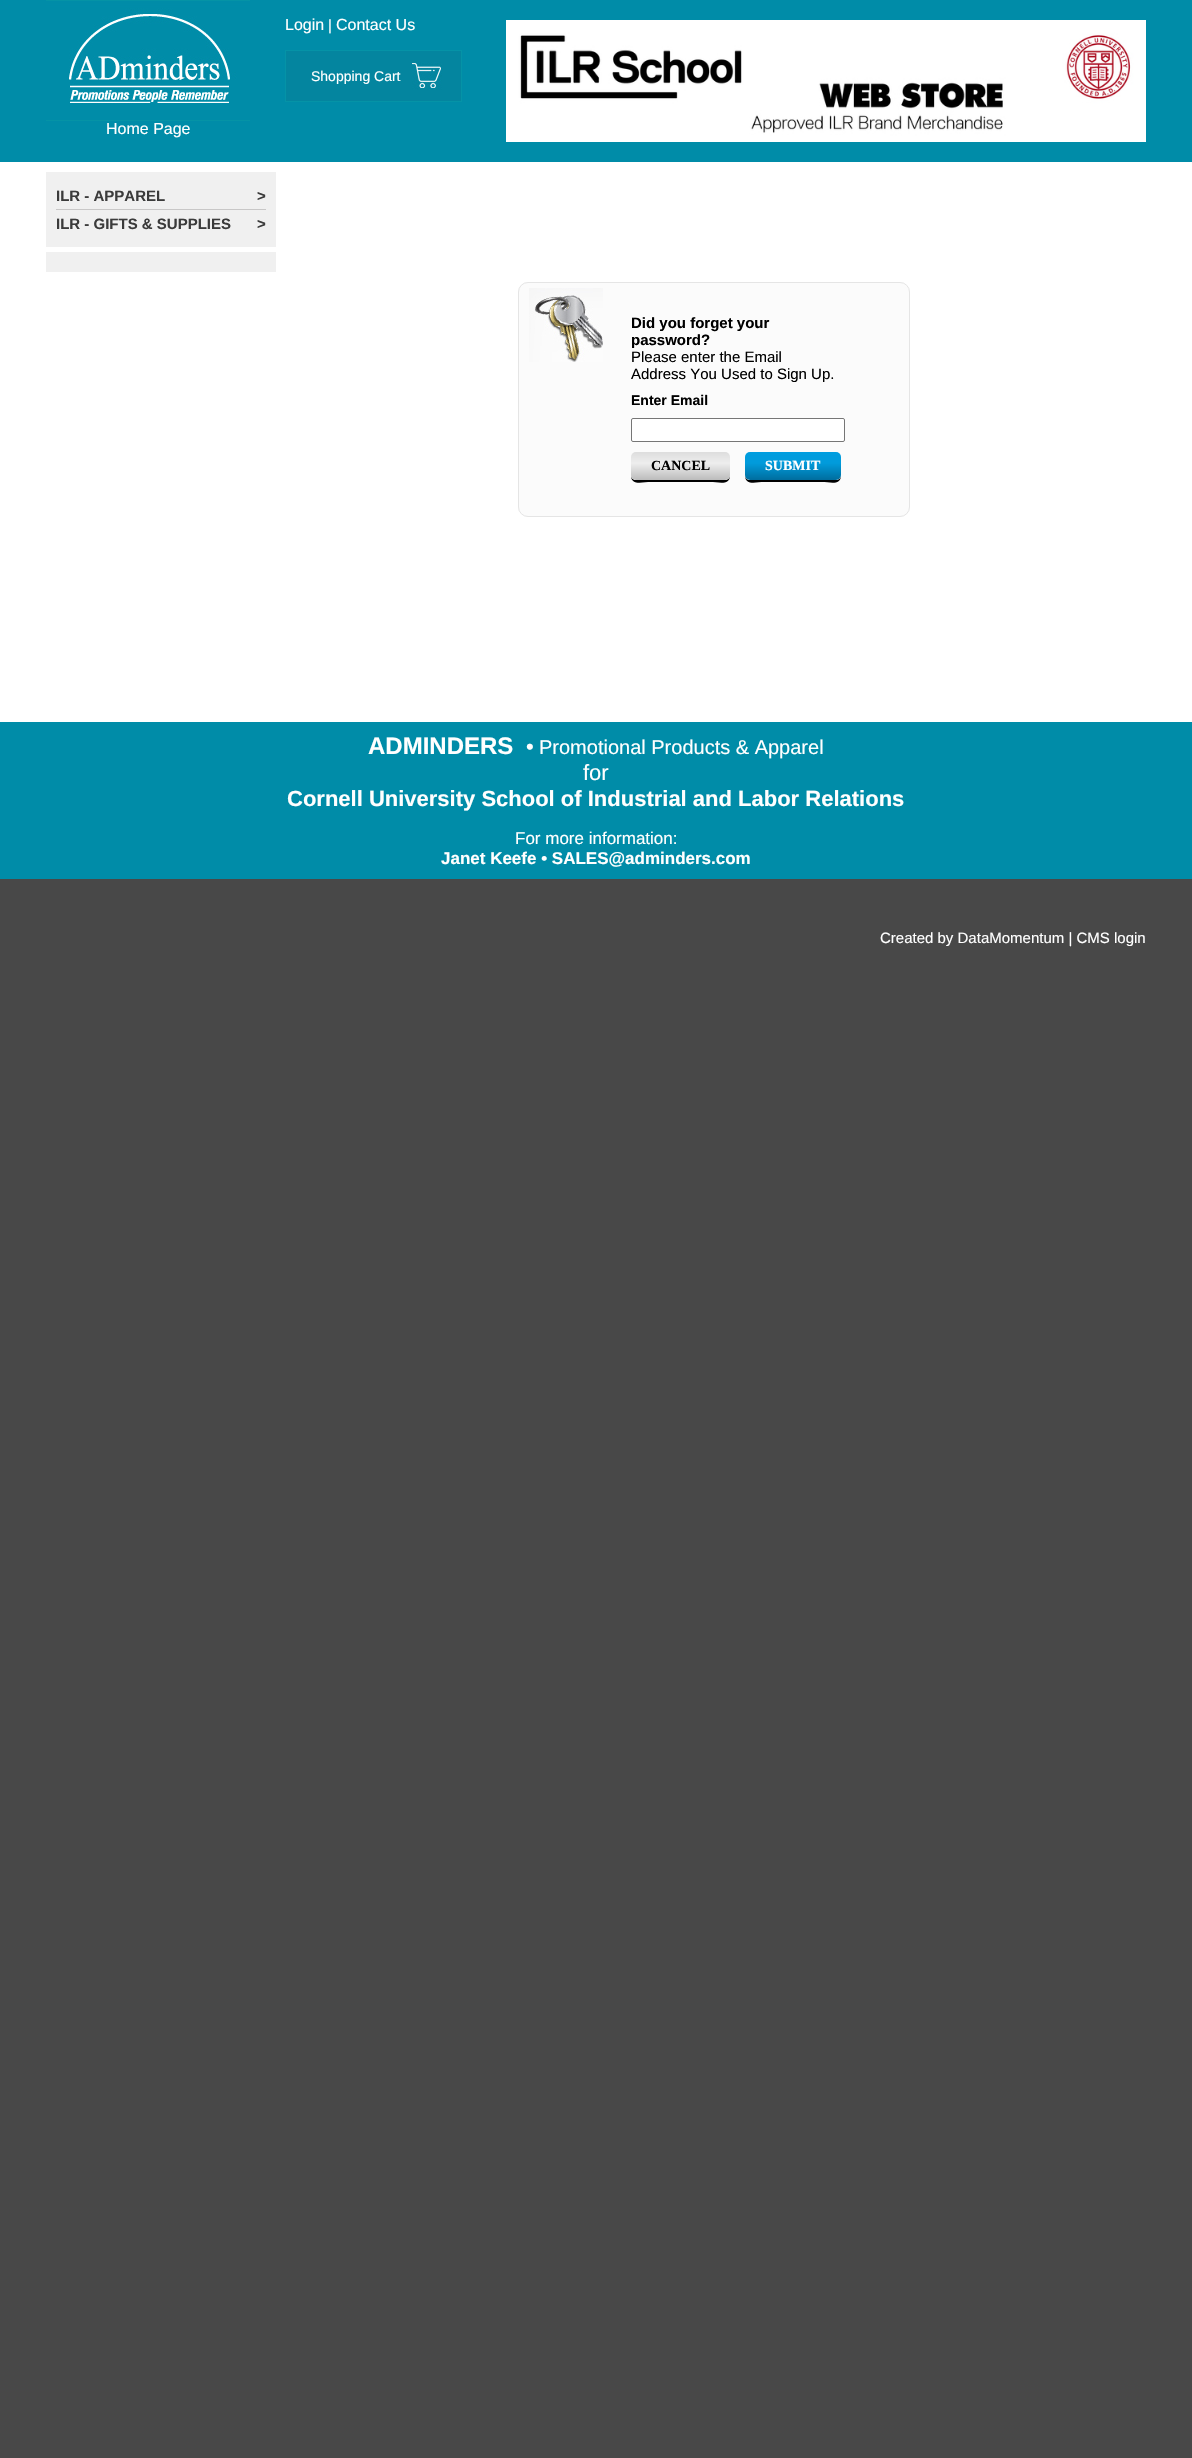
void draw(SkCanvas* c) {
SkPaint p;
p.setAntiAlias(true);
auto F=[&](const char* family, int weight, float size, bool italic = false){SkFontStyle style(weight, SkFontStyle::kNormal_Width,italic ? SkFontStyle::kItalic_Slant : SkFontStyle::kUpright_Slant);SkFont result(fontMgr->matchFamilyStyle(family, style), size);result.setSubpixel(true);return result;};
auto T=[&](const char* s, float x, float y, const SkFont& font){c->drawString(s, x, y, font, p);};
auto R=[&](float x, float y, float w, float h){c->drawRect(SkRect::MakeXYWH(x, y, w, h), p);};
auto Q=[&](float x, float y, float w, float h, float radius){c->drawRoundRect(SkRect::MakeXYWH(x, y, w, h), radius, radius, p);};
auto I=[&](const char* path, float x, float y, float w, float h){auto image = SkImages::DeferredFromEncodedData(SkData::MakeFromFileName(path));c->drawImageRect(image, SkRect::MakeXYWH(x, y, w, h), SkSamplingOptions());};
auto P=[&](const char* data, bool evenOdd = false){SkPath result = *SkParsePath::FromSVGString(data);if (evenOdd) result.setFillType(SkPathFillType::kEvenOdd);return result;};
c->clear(0xff484848);
p.setColor(0xff008ca8);
R(0,0,1192,162);
I("1.png",46,0,204,121);
auto f1 = F("Liberation Sans",400,16);
p.setColor(0xffffffff);
T("Login",285,30,f1);
auto f2 = F("Liberation Sans",400,15);
T("|",328,30,f2);
T("Contact Us",336,30,f1);
p.setColor(0xff04859f);
R(286,51,175,50);
I("2.png",412,62,30,28);
p.setStroke(true);
p.setStrokeWidth(1);
p.setColor(0xff0593a7);
c->drawRect(SkRect::MakeXYWH(285.5,50.5,176,51),p);
auto f3 = F("Liberation Sans",400,14);
p.setStroke(false);
p.setColor(0xffffffff);
T("Shopping Cart",311,81,f3);
I("3.png",506,20,640,122);
T("Home Page",106,134,f1);
R(0,162,1192,560);
p.setColor(0xfff0f0f0);
R(46,172,230,75);
p.setColor(0xffc8c7c7);
R(56,209,210,1);
auto f4 = F("Liberation Sans",700,15);
p.setColor(0xff3b3b3b);
T("ILR - APPAREL",56,201,f4);
T(">",257,201,f4);
T("ILR - GIFTS & SUPPLIES",56,229,f4);
T(">",257,229,f4);
p.setColor(0xfff0f0f0);
R(46,252,230,20);
p.setColor(0xfffbfbfb);
Q(518,282,392,235,10);
I("4.png",529,288,74,74);
p.setStroke(true);
p.setColor(0xffe5e5e5);
c->drawRoundRect(SkRect::MakeXYWH(518.5,282.5,391,234),9.5,9.5,p);
p.setStroke(false);
p.setColor(0xff000000);
T("Did you forget your",631,328,f4);
T("password?",631,345,f4);
T("Please enter the Email",631,362,f2);
T("Address You Used to Sign Up.",631,379,f2);
auto f5 = F("Liberation Sans",700,14);
T("Enter Email",631,405,f5);
p.setColor(0xffffffff);
c->drawRoundRect(SkRect::MakeXYWH(631.5,418.5,213,23),1.5,1.5,p);
p.setStroke(true);
p.setColor(0xff767676);
c->drawRoundRect(SkRect::MakeXYWH(631.5,418.5,213,23),1.5,1.5,p);
p.setStroke(false);
p.setColor(0xff000000);
c->drawPath(P("M631 475c0 11 11 7 20 7h59c9 0 20 4 20-7c0 3-2 5-5 5h-89c-3 0-5-2-5-5z"),p);
{
const SkColor colors[] = {0xffdddddd,0xffeeeeee,0xffbbbbbb};
const float stops[] = {0,.4,1};
const SkPoint ends[] = {{631,452}, {631,480}};
p.setShader(SkGradientShader::MakeLinear(ends, colors, stops, 3, SkTileMode::kClamp));
p.setAlpha(255);
}
Q(631,452,99,28,5);
auto f6 = F("Liberation Serif",700,14);
p.setShader(nullptr);
p.setColor(0xff000000);
T("CANCEL",651,470,f6);
c->drawPath(P("M745 475c0 11 11 7 19 7h58c8 0 19 4 19-7c0 3-2 5-5 5h-86c-3 0-5-2-5-5z"),p);
{
const SkColor colors[] = {0xff009de0,0xff019bdb,0xff006d9e};
const float stops[] = {0,.4,1};
const SkPoint ends[] = {{745,452}, {745,480}};
p.setShader(SkGradientShader::MakeLinear(ends, colors, stops, 3, SkTileMode::kClamp));
p.setAlpha(255);
}
Q(745,452,96,28,5);
p.setShader(nullptr);
p.setColor(0xffffffff);
T("SUBMIT",765,470,f6);
p.setColor(0xff008ca8);
R(0,722,1192,157);
auto f7 = F("Liberation Sans",700,24);
p.setColor(0xffffffff);
T("ADMINDERS",368,754,f7);
auto f8 = F("Liberation Sans",400,22);
T("•",526,754,f8);
auto f9 = F("Liberation Sans",400,20);
T("Promotional Products & Apparel",539,754,f9);
T("for",583,780,f8);
auto f10 = F("Liberation Sans",700,22);
T("Cornell University School of Industrial and Labor Relations",287,806,f10);
auto f11 = F("Liberation Sans",400,17);
T("For more information:",515,844,f11);
auto f12 = F("Liberation Sans",700,17);
T("Janet Keefe • SALES@adminders.com",441,864,f12);
T("Created by DataMomentum | CMS login",880,943,f2);
}
